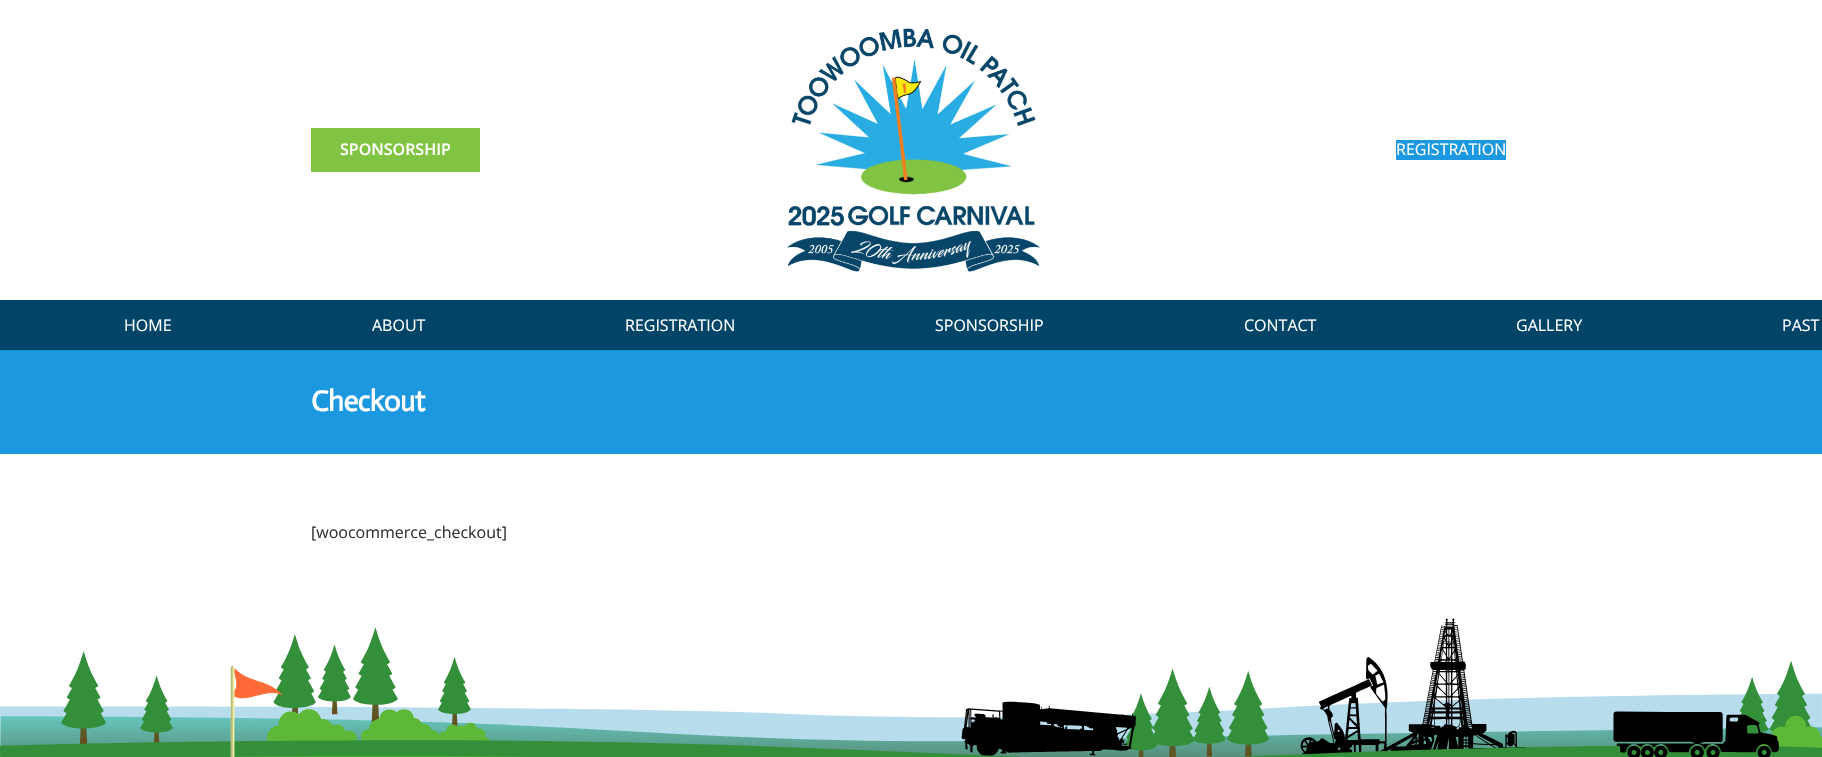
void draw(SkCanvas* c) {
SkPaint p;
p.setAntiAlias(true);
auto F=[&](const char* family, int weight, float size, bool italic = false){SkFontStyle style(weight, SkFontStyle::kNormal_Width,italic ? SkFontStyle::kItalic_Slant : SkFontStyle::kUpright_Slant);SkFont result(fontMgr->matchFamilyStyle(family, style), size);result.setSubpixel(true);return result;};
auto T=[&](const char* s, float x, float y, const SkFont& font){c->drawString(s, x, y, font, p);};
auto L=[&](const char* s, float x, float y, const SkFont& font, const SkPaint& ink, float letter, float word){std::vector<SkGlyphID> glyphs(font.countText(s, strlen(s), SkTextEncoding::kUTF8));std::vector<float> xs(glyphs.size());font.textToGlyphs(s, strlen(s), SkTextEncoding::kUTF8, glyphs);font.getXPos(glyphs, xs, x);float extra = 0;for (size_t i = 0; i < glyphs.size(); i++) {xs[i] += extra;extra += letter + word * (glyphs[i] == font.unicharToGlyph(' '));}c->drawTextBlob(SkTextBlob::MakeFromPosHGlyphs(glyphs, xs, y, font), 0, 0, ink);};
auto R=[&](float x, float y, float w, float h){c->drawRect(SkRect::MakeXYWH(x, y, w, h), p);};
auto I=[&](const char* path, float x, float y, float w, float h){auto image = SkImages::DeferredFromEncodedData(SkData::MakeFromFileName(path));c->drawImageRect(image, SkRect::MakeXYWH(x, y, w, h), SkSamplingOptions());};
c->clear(0xffffffff);
p.setColor(0xff81c342);
R(311,128,169,44);
auto f1 = F("Open Sans",600,16);
p.setColor(0xffffffff);
T("SPONSORSHIP",340,155,f1);
I("1.png",786,28,255,244);
p.setColor(0xff1b98e0);
R(1396,140,110,20);
auto f2 = F("Open Sans",400,16);
p.setColor(0xffffffff);
T("REGISTRATION",1396,155,f2);
p.setColor(0xff198cce);
R(0,350,1822,1);
p.setColor(0xff004568);
R(0,300,1822,50);
p.setColor(0xffffffff);
T("HOME",124,331,f2);
T("ABOUT",372,331,f2);
T("REGISTRATION",625,331,f2);
T("SPONSORSHIP",935,331,f2);
T("CONTACT",1244,331,f2);
T("GALLERY",1516,331,f2);
T("PAST",1782,331,f2);
p.setColor(0xff1b98e0);
R(0,351,1822,103);
auto f3 = F("Actor",700,29);
p.setColor(0xffffffff);
L("Checkout",311,411,f3,p,-.5,0);
p.setColor(0xff333333);
T("[woocommerce_checkout]",311,538,f2);
I("2.png",0,618,1822,139);
}
